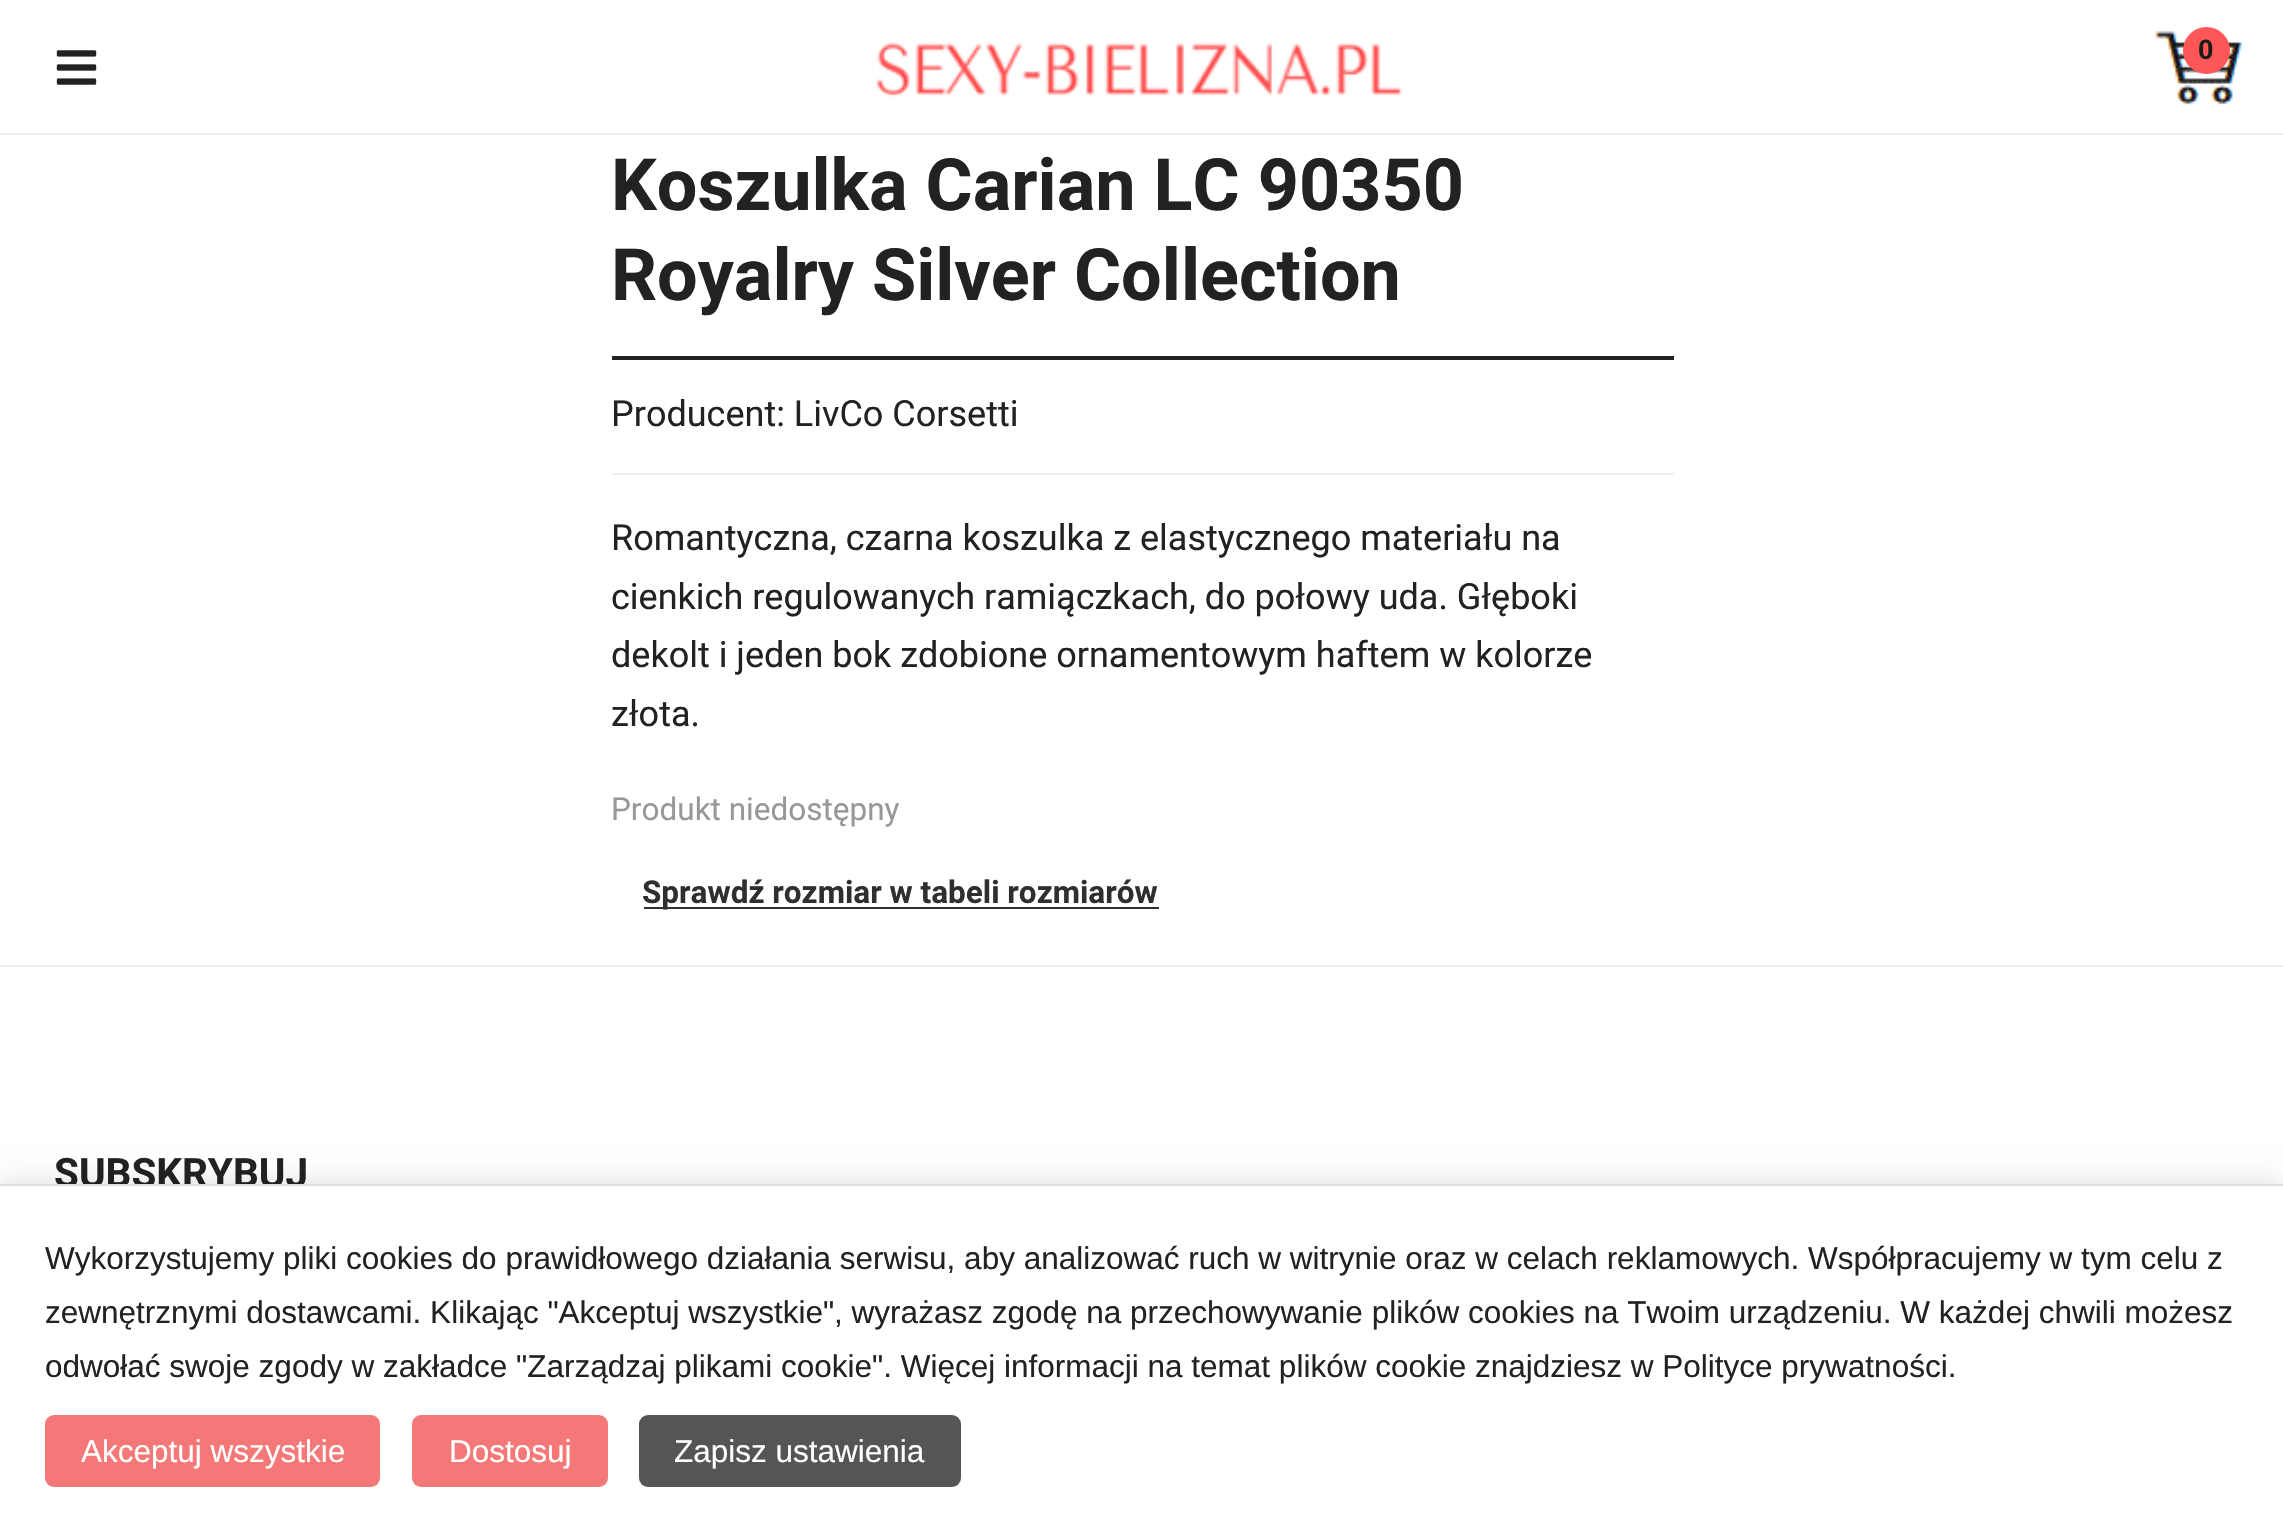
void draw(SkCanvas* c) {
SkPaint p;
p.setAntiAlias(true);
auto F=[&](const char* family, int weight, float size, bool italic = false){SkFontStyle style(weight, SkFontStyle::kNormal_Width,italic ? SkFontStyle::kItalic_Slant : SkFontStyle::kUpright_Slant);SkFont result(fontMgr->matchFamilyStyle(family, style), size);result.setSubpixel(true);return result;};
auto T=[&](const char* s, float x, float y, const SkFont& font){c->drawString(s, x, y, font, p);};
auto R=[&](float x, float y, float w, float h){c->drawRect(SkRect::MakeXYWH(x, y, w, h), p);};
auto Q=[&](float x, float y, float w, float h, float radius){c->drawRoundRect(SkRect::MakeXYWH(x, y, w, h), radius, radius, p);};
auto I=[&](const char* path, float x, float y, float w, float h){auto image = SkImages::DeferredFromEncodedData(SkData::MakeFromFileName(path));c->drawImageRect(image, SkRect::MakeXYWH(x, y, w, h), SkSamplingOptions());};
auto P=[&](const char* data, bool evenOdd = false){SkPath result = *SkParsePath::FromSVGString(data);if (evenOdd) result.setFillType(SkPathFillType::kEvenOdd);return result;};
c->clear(0xffffffff);
p.setColor(0xffeff0f1);
R(0,133,2283,2);
I("1.png",56,50,41,35);
I("2.png",871,42,532,55);
I("3.png",2155,31,87,74);
p.setColor(0xffff5757);
c->drawCircle(2206.5,50.5,23.5,p);
auto f1 = F("Roboto",700,27);
p.setColor(0xff1c1c1b);
T("0",2198,59,f1);
auto f2 = F("Roboto",700,72);
p.setColor(0xff222222);
T("Koszulka Carian LC 90350",611,210,f2);
T("Royalry Silver Collection",611,300,f2);
c->save();
c->clipRect(SkRect::MakeXYWH(612,340,1062,18));
c->drawPath(P("M389 117h1508v463h-1508zm223 216h1062c1 0 2 1 2 2v18c0 1-1 3-2 3h-1062c-1 0-2-2-2-3v-18c0-1 1-2 2-2z",true),p);
c->restore();
R(612,358,1062,2);
p.setColor(0xffeff0f1);
R(612,473,1062,2);
auto f3 = F("Roboto",400,36);
p.setColor(0xff222222);
T("Producent: LivCo Corsetti",611,426,f3);
T("Romantyczna, czarna koszulka z elastycznego materiału na",611,550,f3);
T("cienkich regulowanych ramiączkach, do połowy uda. Głęboki",611,609,f3);
T("dekolt i jeden bok zdobione ornamentowym haftem w kolorze",611,667,f3);
T("złota.",611,726,f3);
auto f4 = F("Roboto",400,31.5);
p.setColor(0xff979797);
T("Produkt niedostępny",611,820,f4);
p.setColor(0xff2f2f2f);
R(644,907,515,2);
auto f5 = F("Roboto",700,31.5);
T("Sprawdź rozmiar w tabeli rozmiarów",642,903,f5);
p.setColor(0xffeff0f1);
R(0,965,2283,2);
auto f6 = F("Roboto",700,40.5);
p.setColor(0xff222222);
T("SUBSKRYBUJ",54,1187,f6);
p.setColor(0x1a000000);
p.setMaskFilter(SkMaskFilter::MakeBlur(kNormal_SkBlurStyle, 11));
c->drawRect(SkRect::MakeXYWH(0,1179,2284,349),p);
p.setMaskFilter(nullptr);
p.setColor(0xffffffff);
R(0,1186,2283,345);
p.setColor(0xffdddddd);
R(0,1184,2283,2);
auto f7 = F("Liberation Sans",400,31.5);
p.setColor(0xff222222);
T("Wykorzystujemy pliki cookies do prawidłowego działania serwisu, aby analizować ruch w witrynie oraz w celach reklamowych. Współpracujemy w tym celu z",45,1269,f7);
T("zewnętrznymi dostawcami. Klikając \"Akceptuj wszystkie\", wyrażasz zgodę na przechowywanie plików cookies na Twoim urządzeniu. W każdej chwili możesz",45,1323,f7);
T("odwołać swoje zgody w zakładce \"Zarządzaj plikami cookie\". Więcej informacji na temat plików cookie znajdziesz w Polityce prywatności.",45,1377,f7);
p.setColor(0xfff57878);
Q(45,1415,335,72,9);
p.setColor(0xffffffff);
T("Akceptuj wszystkie",81,1462,f7);
p.setColor(0xfff57878);
Q(412,1415,196,72,9);
p.setColor(0xffffffff);
T("Dostosuj",449,1462,f7);
p.setColor(0xff555555);
Q(639,1415,322,72,9);
p.setColor(0xffffffff);
T("Zapisz ustawienia",674,1462,f7);
}
